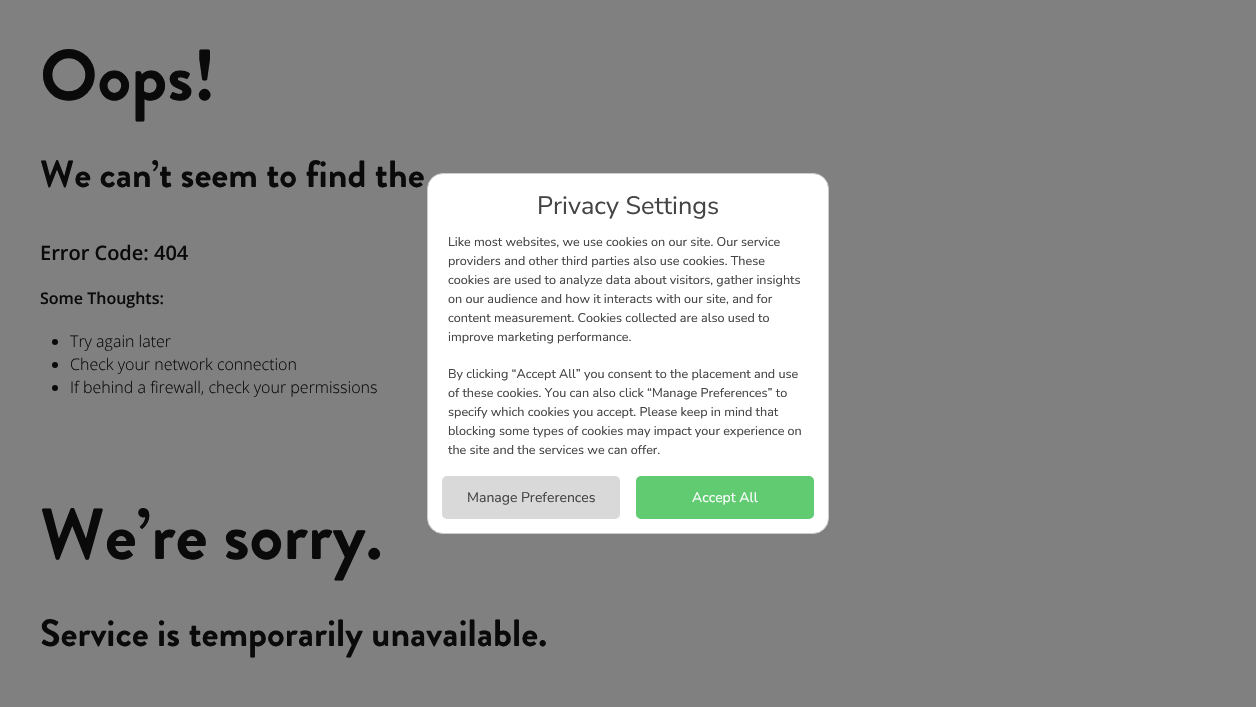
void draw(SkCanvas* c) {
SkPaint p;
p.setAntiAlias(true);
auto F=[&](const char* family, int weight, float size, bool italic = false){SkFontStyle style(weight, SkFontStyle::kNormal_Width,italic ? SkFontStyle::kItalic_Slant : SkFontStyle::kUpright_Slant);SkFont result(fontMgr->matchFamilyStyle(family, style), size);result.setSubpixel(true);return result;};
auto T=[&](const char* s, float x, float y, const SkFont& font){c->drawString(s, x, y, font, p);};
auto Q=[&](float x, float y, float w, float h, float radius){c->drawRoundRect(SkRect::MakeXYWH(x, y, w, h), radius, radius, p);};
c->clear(0xff808080);
auto f1 = F("Brandon Grotesque",700,72);
p.setColor(0xff0a0a0a);
T("Oops!",40,100,f1);
auto f2 = F("Brandon Grotesque",700,38);
T("We can’t seem to find the",40,187,f2);
auto f3 = F("Open Sans",600,20);
T("Error Code: 404",40,260,f3);
auto f4 = F("Open Sans",600,16);
T("Some Thoughts:",40,304,f4);
c->drawCircle(55,342,3,p);
auto f5 = F("Open Sans",300,16);
T("Try again later",70,347,f5);
c->drawCircle(55,365,3,p);
T("Check your network connection",70,370,f5);
c->drawCircle(55,388,3,p);
T("If behind a firewall, check your permissions",70,393,f5);
T("We’re sorry.",40,559,f1);
T("Service is temporarily unavailable.",40,646,f2);
p.setColor(0xffffffff);
c->drawRoundRect(SkRect::MakeXYWH(427.5,173.5,401,360),15.5,15.5,p);
p.setStroke(true);
p.setStrokeWidth(1);
p.setColor(0xffcccccc);
c->drawRoundRect(SkRect::MakeXYWH(427.5,173.5,401,360),15.5,15.5,p);
auto f6 = F("Nunito Sans",400,25.25);
p.setStroke(false);
p.setColor(0xff444444);
T("Privacy Settings",537,214,f6);
auto f7 = F("Nunito Sans",400,12.6);
T("Like most websites, we use cookies on our site. Our service",448,246,f7);
T("providers and other third parties also use cookies. These",448,265,f7);
T("cookies are used to analyze data about visitors, gather insights",448,284,f7);
T("on our audience and how it interacts with our site, and for",448,303,f7);
T("content measurement. Cookies collected are also used to",448,322,f7);
T("improve marketing performance.",448,341,f7);
T("By clicking “Accept All” you consent to the placement and use",448,378,f7);
T("of these cookies. You can also click “Manage Preferences” to",448,397,f7);
T("specify which cookies you accept. Please keep in mind that",448,416,f7);
T("blocking some types of cookies may impact your experience on",448,435,f7);
T("the site and the services we can offer.",448,454,f7);
p.setColor(0xffd9d9d9);
Q(442,476,178,43,5);
auto f8 = F("Nunito Sans",400,14);
p.setColor(0xff444444);
T("Manage Preferences",467,502,f8);
p.setColor(0xff60cb71);
Q(636,476,178,43,5);
p.setColor(0xffffffff);
T("Accept All",692,502,f8);
}
